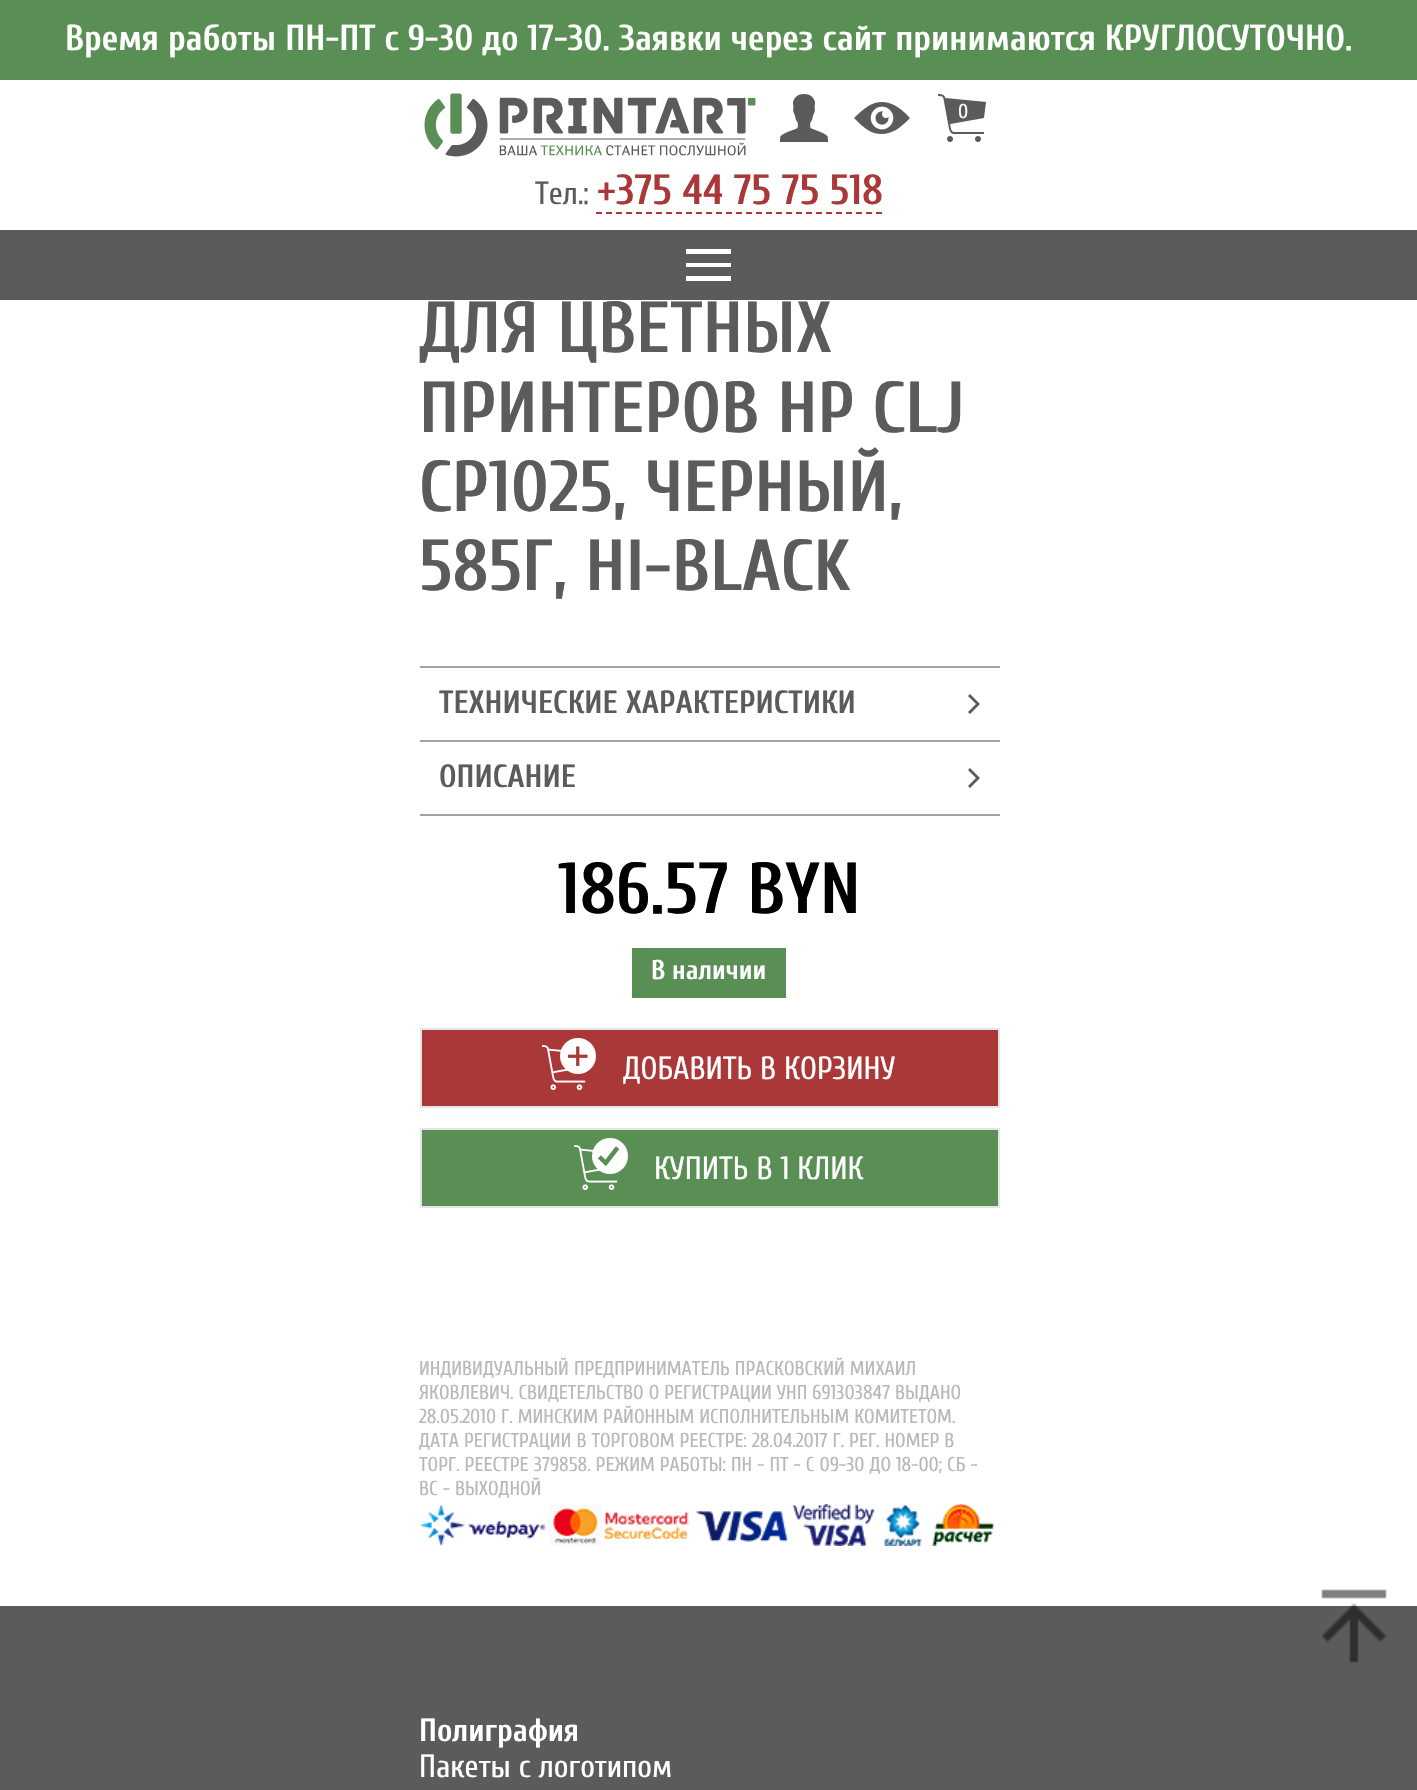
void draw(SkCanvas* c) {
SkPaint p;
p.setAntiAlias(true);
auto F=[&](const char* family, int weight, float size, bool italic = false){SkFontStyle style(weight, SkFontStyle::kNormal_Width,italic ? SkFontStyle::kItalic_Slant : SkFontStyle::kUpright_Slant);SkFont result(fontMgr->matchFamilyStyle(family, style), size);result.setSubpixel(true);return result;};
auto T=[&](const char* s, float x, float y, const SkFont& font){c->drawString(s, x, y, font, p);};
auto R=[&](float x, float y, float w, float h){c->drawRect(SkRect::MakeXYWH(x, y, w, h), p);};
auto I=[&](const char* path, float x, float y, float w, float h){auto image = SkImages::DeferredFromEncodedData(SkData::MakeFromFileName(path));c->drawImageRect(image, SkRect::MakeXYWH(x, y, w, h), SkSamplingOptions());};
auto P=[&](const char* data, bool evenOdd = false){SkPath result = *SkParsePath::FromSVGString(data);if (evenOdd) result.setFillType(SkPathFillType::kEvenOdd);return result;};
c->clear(0xffffffff);
p.setColor(0xff598f54);
R(0,0,1417,80);
auto f1 = F("Cuprum",700,36);
p.setColor(0xffffffff);
T("Время работы ПН-ПТ с 9-30 до 17-30. Заявки через сайт принимаются КРУГЛОСУТОЧНО.",65,50,f1);
I("1.png",424,93,332,64);
I("2.png",780,94,48,48);
I("3.png",854,102,56,32);
I("4.png",938,94,48,48);
auto f2 = F("Cuprum",400,20);
T("0",958,118,f2);
auto f3 = F("Cuprum",400,32);
p.setColor(0xff5b5b5b);
T("Тел.:",535,204,f3);
p.setStroke(true);
p.setStrokeWidth(2);
p.setColor(0xffaa3838);
p.setPathEffect(SkDashPathEffect::Make({{6,4}}, 0));
c->drawPath(P("M596 213h286"),p);
p.setPathEffect(nullptr);
auto f4 = F("Cuprum",700,42);
p.setStroke(false);
T("+375 44 75 75 518",597,204,f4);
p.setColor(0xff5b5b5b);
R(0,230,1417,70);
p.setColor(0xffffffff);
c->drawPath(P("M686 267v-4h45v4zm0-13v-5h45v5zm0 27v-5h45v5z"),p);
auto f5 = F("Cuprum",700,72);
p.setColor(0xff5b5b5b);
T("ДЛЯ ЦВЕТНЫХ",419,352,f5);
T("ПРИНТЕРОВ HP CLJ",419,432,f5);
T("CP1025, ЧЕРНЫЙ,",419,511,f5);
T("585Г, HI-BLACK",419,590,f5);
p.setColor(0xffa2a2a2);
R(420,666,580,2);
R(420,740,580,2);
auto f6 = F("Cuprum",700,32);
p.setColor(0xff5b5b5b);
T("ТЕХНИЧЕСКИЕ ХАРАКТЕРИСТИКИ",439,713,f6);
c->drawPath(P("M968 696l2-2l10 10l-10 10l-2-2l8-8z"),p);
p.setColor(0xffa2a2a2);
R(420,814,580,2);
p.setColor(0xff5b5b5b);
T("ОПИСАНИЕ",439,787,f6);
c->drawPath(P("M968 770l2-2l10 10l-10 10l-2-2l8-8z"),p);
p.setColor(0xff000000);
T("186.57 BYN",558,913,f5);
p.setColor(0xff598f54);
R(632,948,154,50);
auto f7 = F("Cuprum",700,27);
p.setColor(0xffffffff);
T("В наличии",651,979,f7);
p.setColor(0xffaa3838);
c->drawRect(SkRect::MakeXYWH(421,1029,578,78),p);
p.setStroke(true);
p.setColor(0xffe5e5e5);
c->drawRect(SkRect::MakeXYWH(421,1029,578,78),p);
I("6.png",542,1045,44,45);
p.setStroke(false);
p.setColor(0xffffffff);
c->drawCircle(578,1056,18,p);
I("5.png",568,1046,20,20);
T("ДОБАВИТЬ В КОРЗИНУ",623,1079,f3);
p.setColor(0xff598f54);
c->drawRect(SkRect::MakeXYWH(421,1129,578,78),p);
p.setStroke(true);
p.setColor(0xffe5e5e5);
c->drawRect(SkRect::MakeXYWH(421,1129,578,78),p);
I("8.png",574,1145,44,45);
p.setStroke(false);
p.setColor(0xffffffff);
c->drawCircle(610,1156,18,p);
I("7.png",598,1146,22,20);
T("КУПИТЬ В 1 КЛИК",654,1179,f3);
p.setColor(0xffb9b9b9);
T("ИНДИВИДУАЛЬНЫЙ ПРЕДПРИНИМАТЕЛЬ ПРАСКОВСКИЙ МИХАИЛ",419,1375,f2);
T("ЯКОВЛЕВИЧ. СВИДЕТЕЛЬСТВО О РЕГИСТРАЦИИ УНП 691303847 ВЫДАНО",419,1399,f2);
T("28.05.2010 Г. МИНСКИМ РАЙОННЫМ ИСПОЛНИТЕЛЬНЫМ КОМИТЕТОМ.",419,1423,f2);
T("ДАТА РЕГИСТРАЦИИ В ТОРГОВОМ РЕЕСТРЕ: 28.04.2017 Г. РЕГ. НОМЕР В",419,1447,f2);
T("ТОРГ. РЕЕСТРЕ 379858. РЕЖИМ РАБОТЫ: ПН - ПТ - С 09-30 ДО 18-00; СБ -",419,1471,f2);
T("ВС - ВЫХОДНОЙ",419,1495,f2);
I("9.png",420,1504,575,42);
p.setColor(0xff5b5b5b);
R(0,1606,1417,184);
I("10.png",1321,1589,66,74);
p.setColor(0xffffffff);
T("Полиграфия",419,1741,f6);
T("Пакеты с логотипом",419,1777,f3);
}
